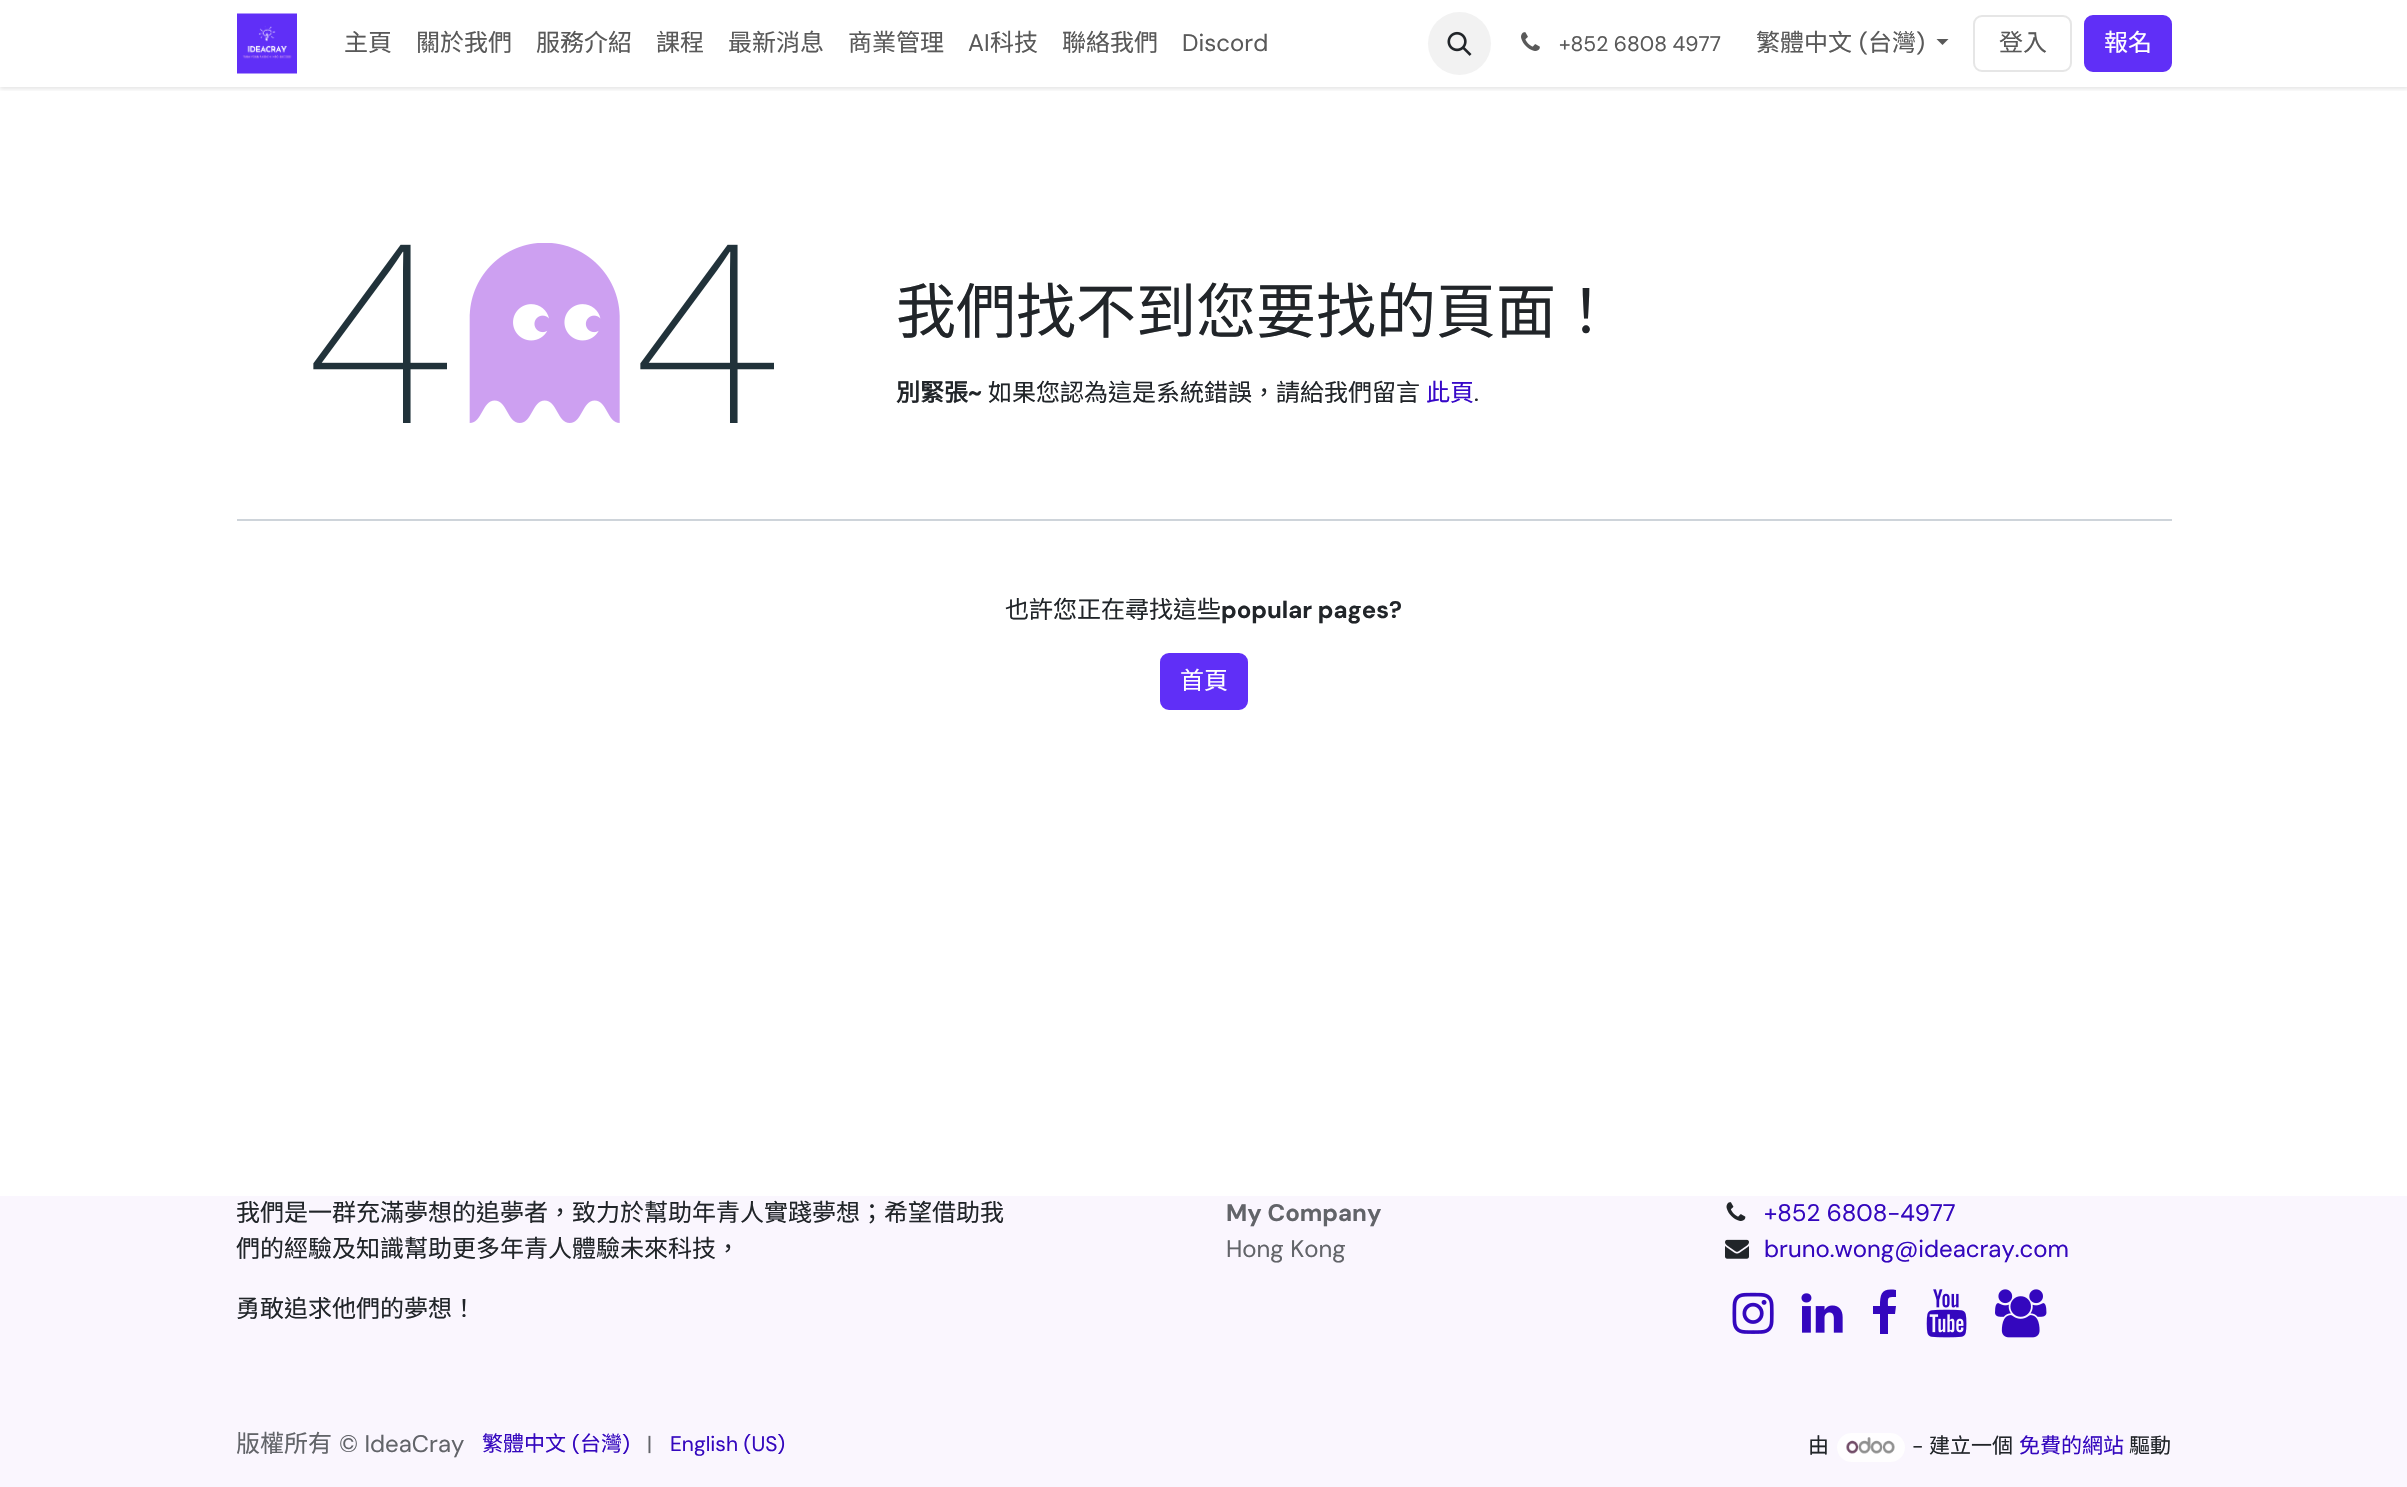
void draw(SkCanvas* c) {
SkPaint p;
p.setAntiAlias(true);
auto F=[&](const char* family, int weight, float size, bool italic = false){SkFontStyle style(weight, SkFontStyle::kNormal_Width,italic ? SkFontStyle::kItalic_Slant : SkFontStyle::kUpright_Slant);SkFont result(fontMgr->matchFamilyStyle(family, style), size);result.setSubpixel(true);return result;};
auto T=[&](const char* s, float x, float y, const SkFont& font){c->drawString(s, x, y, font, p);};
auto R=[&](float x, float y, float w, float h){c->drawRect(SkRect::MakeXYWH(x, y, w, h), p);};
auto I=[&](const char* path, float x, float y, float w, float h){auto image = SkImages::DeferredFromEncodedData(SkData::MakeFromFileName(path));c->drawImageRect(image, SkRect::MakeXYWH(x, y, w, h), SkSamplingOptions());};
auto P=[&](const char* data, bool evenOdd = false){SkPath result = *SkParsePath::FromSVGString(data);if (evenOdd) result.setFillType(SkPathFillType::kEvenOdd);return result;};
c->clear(0xffffffff);
c->save();
c->clipRect(SkRect::MakeXYWH(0,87,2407,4));
p.setColor(0x1a000000);
p.setMaskFilter(SkMaskFilter::MakeBlur(kNormal_SkBlurStyle, 2));
c->drawRect(SkRect::MakeXYWH(0,2,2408,87),p);
p.setMaskFilter(nullptr);
c->restore();
I("1.png",237,13,60,61);
auto f1 = F("Noto Sans CJK TC",400,24);
p.setColor(0xff595959);
T("主頁",344,51,f1);
T("關於我們",416,51,f1);
T("服務介紹",536,51,f1);
T("課程",656,51,f1);
T("最新消息",728,51,f1);
T("商業管理",848,51,f1);
auto f2 = F("DM Sans",400,24);
T("AI",968,51,f2);
T("科技",990,51,f1);
T("聯絡我們",1062,51,f1);
T("Discord",1182,51,f2);
p.setColor(0xfff2f2f2);
c->drawCircle(1459.5,43.5,31.5,p);
I("2.png",1447,31,25,25);
I("3.png",1521,32,19,19);
auto f3 = F("DM Sans",400,21);
p.setColor(0xff595959);
T("+852 6808 4977",1559,51,f3);
T("繁體中文",1756,51,f1);
T("(",1859,51,f2);
T("台灣",1868,51,f1);
T(")",1916,51,f2);
c->drawPath(P("M1936.5 39h12l-6 6z"),p);
p.setStroke(true);
p.setStrokeWidth(2);
p.setColor(0xffe6e6e6);
c->drawRoundRect(SkRect::MakeXYWH(1974,16,97,55),8,8,p);
p.setStroke(false);
p.setColor(0xff595959);
T("登入",1999,51,f1);
p.setColor(0xff602ff7);
c->drawRoundRect(SkRect::MakeXYWH(2085,16,86,55),8,8,p);
p.setStroke(true);
c->drawRoundRect(SkRect::MakeXYWH(2085,16,86,55),8,8,p);
p.setStroke(false);
p.setColor(0xffffffff);
T("報名",2104,51,f1);
I("4.png",313,243,461,180);
auto f4 = F("Noto Sans CJK TC",400,60);
p.setColor(0xff212529);
T("我們找不到您要找的頁面！",896,333,f4);
auto f5 = F("Noto Sans CJK TC",700,24);
T("別緊張",896,401,f5);
auto f6 = F("DM Sans",700,24);
T("~",968,401,f6);
T("如果您認為這是系統錯誤，請給我們留言",988,401,f1);
p.setColor(0xff3708c8);
T("此頁",1426,401,f1);
p.setColor(0xff212529);
T(".",1474,401,f2);
p.setColor(0xffced4da);
R(237,519,1935,2);
p.setColor(0xff212529);
T("也許您正在尋找這些",1005,618,f1);
T("popular pages?",1221,618,f6);
p.setColor(0xff602ff7);
c->drawRoundRect(SkRect::MakeXYWH(1161,654,86,55),8,8,p);
p.setStroke(true);
c->drawRoundRect(SkRect::MakeXYWH(1161,654,86,55),8,8,p);
p.setStroke(false);
p.setColor(0xffffffff);
T("首頁",1180,689,f1);
p.setColor(0xfffaf6fe);
R(0,1196,2407,291);
p.setColor(0xff212529);
T("我們是一群充滿夢想的追夢者，致力於幫助年青人實踐夢想；希望借助我",236,1221,f1);
T("們的經驗及知識幫助更多年青人體驗未來科技，",236,1257,f1);
T("勇敢追求他們的夢想！",236,1317,f1);
p.setColor(0xff626469);
T("My Company",1226,1221,f6);
T("Hong Kong",1226,1257,f2);
I("5.png",1726,1202,20,19);
p.setColor(0xff3407be);
T("+852 6808-4977",1764,1221,f2);
I("6.png",1725,1239,24,20);
T("bruno.wong@ideacray.com",1764,1257,f2);
I("7.png",1732,1292,42,42);
I("8.png",1801,1293,42,40);
c->drawPath(P("M1896 1290v7c-9 0-8 0-8 9h8l-1 8h-7v20h-8v-20h-7v-8h7c0-13 2-18 16-16z"),p);
I("9.png",1926,1289,41,49);
I("10.png",1995,1289,52,49);
p.setColor(0xff626469);
T("版權所有",236,1452,f1);
T("© IdeaCray",339,1452,f2);
auto f7 = F("Noto Sans CJK TC",400,21);
p.setColor(0xff3407be);
T("繁體中文",482,1451,f7);
T("(",572,1451,f3);
T("台灣",580,1451,f7);
T(")",622,1451,f3);
p.setColor(0xff626469);
T("|",647,1451,f3);
p.setColor(0xff3407be);
T("English (US)",670,1451,f3);
p.setColor(0xff212529);
T("由",1808,1453,f7);
p.setColor(0xfffffeff);
c->drawRoundRect(SkRect::MakeXYWH(1836,1432,70,31),15.5,15.5,p);
p.setStroke(true);
p.setColor(0xfffaf6fe);
c->drawRoundRect(SkRect::MakeXYWH(1836,1432,70,31),15.5,15.5,p);
I("11.png",1846,1437,49,17);
p.setStroke(false);
p.setColor(0xff212529);
T("-",1912,1453,f3);
T("建立一個",1929,1453,f7);
p.setColor(0xff3407be);
T("免費的網站",2019,1453,f7);
p.setColor(0xff212529);
T("驅動",2129,1453,f7);
}
